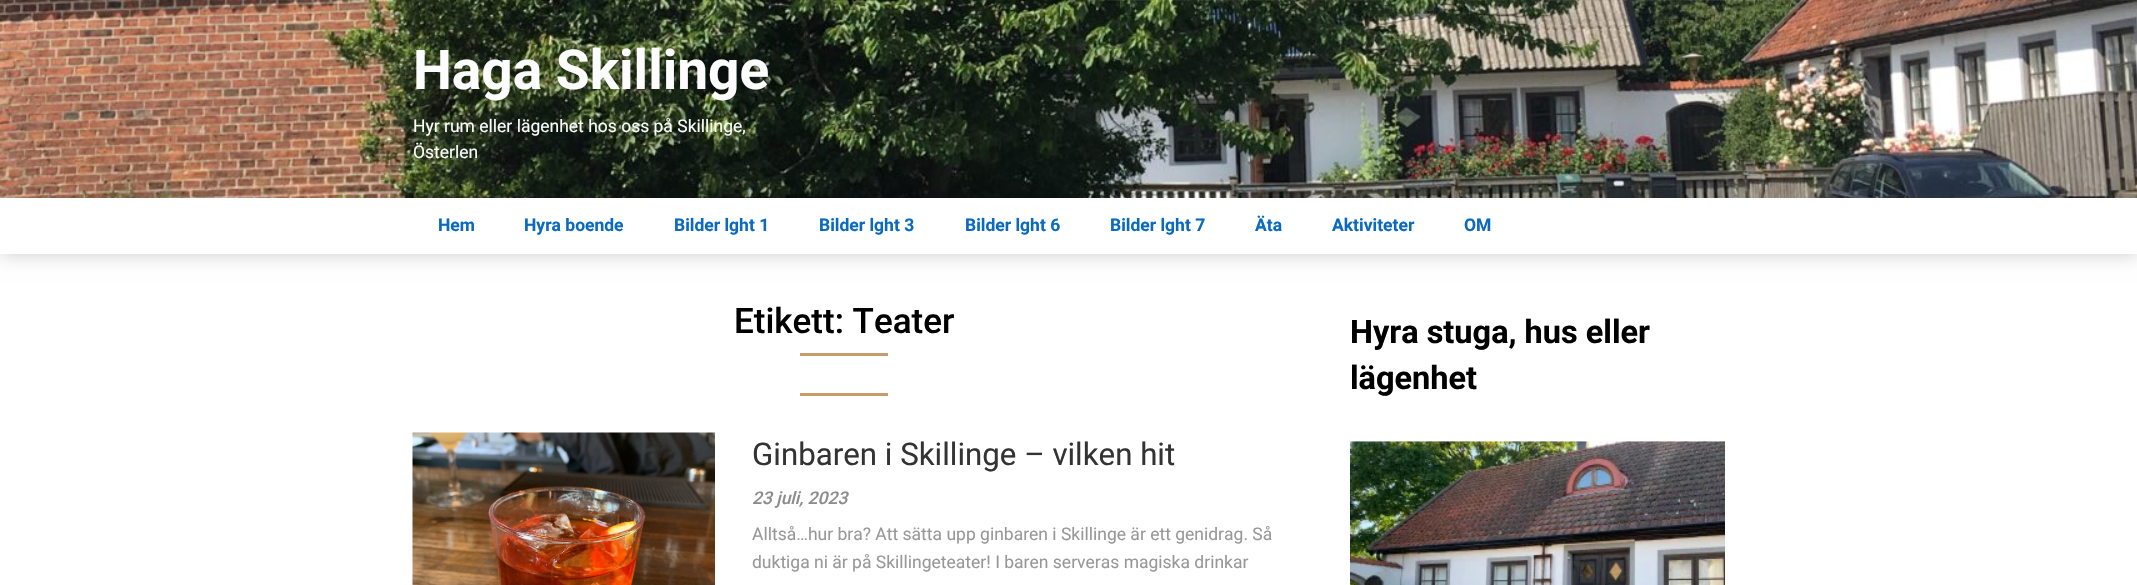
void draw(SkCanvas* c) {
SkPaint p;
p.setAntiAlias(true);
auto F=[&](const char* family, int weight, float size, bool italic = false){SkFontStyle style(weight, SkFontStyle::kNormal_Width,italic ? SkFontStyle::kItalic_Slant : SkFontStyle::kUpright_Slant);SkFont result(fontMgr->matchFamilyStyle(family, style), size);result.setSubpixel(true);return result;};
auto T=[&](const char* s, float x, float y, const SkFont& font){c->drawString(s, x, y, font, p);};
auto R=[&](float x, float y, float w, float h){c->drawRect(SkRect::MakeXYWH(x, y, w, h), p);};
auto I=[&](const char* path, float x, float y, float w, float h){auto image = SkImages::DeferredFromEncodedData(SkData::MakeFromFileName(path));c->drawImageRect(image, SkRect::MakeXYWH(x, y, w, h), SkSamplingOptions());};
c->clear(0xffffffff);
p.setColor(0x33000000);
p.setMaskFilter(SkMaskFilter::MakeBlur(kNormal_SkBlurStyle, 9.5));
c->drawRect(SkRect::MakeXYWH(0,0,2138,254),p);
p.setMaskFilter(nullptr);
I("1.png",0,0,2137,198);
auto f1 = F("Roboto",700,55);
p.setColor(0xfffcfcfc);
T("Haga Skillinge",413,89,f1);
auto f2 = F("Roboto",400,17.5);
T("Hyr rum eller lägenhet hos oss på Skillinge,",413,132,f2);
T("Österlen",413,158,f2);
p.setColor(0xffffffff);
R(0,198,2137,56);
auto f3 = F("Roboto",700,17.5);
p.setColor(0xff096abf);
T("Hem",438,231,f3);
T("Hyra boende",524,231,f3);
T("Bilder lght 1",674,231,f3);
T("Bilder lght 3",819,231,f3);
T("Bilder lght 6",965,231,f3);
T("Bilder lght 7",1110,231,f3);
T("Äta",1255,231,f3);
T("Aktiviteter",1332,231,f3);
T("OM",1464,231,f3);
auto f4 = F("Roboto",500,35);
p.setColor(0xff000000);
T("Etikett: Teater",734,333,f4);
p.setColor(0xffc69c6d);
R(800,353,88,3);
R(800,393,88,3);
I("2.png",412,432,303,153);
auto f5 = F("Roboto",400,31.25);
p.setColor(0xff333333);
T("Ginbaren i Skillinge – vilken hit",752,465,f5);
auto f6 = F("Roboto",500,17.5,true);
p.setColor(0xff8c8c8c);
T("23 juli, 2023",752,504,f6);
p.setColor(0xff989898);
T("Alltså…hur bra? Att sätta upp ginbaren i Skillinge är ett genidrag. Så",752,540,f2);
T("duktiga ni är på Skillingeteater! I baren serveras magiska drinkar",752,568,f2);
auto f7 = F("Roboto",700,32.5);
p.setColor(0xff000000);
T("Hyra stuga, hus eller",1350,343,f7);
T("lägenhet",1350,389,f7);
I("3.png",1350,441,375,144);
}
